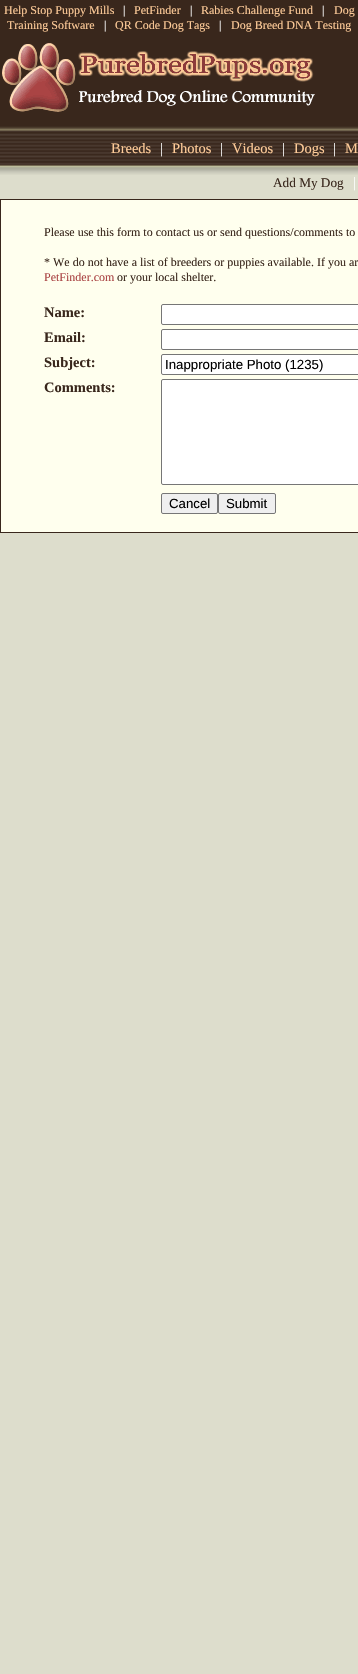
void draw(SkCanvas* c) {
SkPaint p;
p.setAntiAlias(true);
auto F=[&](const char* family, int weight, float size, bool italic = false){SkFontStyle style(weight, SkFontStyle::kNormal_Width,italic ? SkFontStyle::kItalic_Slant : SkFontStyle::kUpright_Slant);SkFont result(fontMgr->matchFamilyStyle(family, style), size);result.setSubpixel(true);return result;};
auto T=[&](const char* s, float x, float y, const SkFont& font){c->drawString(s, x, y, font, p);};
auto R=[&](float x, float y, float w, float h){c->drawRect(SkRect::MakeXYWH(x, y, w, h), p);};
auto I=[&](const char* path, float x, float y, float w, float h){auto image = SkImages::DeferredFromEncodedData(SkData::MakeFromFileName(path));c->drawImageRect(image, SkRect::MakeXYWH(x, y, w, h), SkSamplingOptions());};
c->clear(0xffddddcc);
p.setColor(0xff39271c);
R(0,0,358,36);
auto f1 = F("Liberation Serif",400,12);
p.setColor(0xffffcc99);
T("Help Stop Puppy Mills",4,14,f1);
p.setColor(0xffffffff);
T("|",123,14,f1);
p.setColor(0xffffcc99);
T("PetFinder",134,14,f1);
p.setColor(0xffffffff);
T("|",190,14,f1);
p.setColor(0xffffcc99);
T("Rabies Challenge Fund",201,14,f1);
p.setColor(0xffffffff);
T("|",322,14,f1);
p.setColor(0xffffcc99);
T("Dog",334,14,f1);
T("Training Software",7,29,f1);
p.setColor(0xffffffff);
T("|",104,29,f1);
p.setColor(0xffffcc99);
T("QR Code Dog Tags",115,29,f1);
p.setColor(0xffffffff);
T("|",219,29,f1);
p.setColor(0xffffcc99);
T("Dog Breed DNA Testing",231,29,f1);
I("1.png",0,36,358,139);
I("2.png",2,43,313,69);
auto f2 = F("Liberation Serif",400,14.5);
T("Breeds",111,153,f2);
p.setColor(0xffffffff);
T("|",160,153,f2);
p.setColor(0xffffcc99);
T("Photos",172,153,f2);
p.setColor(0xffffffff);
T("|",220,153,f2);
p.setColor(0xffffcc99);
T("Videos",232,153,f2);
p.setColor(0xffffffff);
T("|",282,153,f2);
p.setColor(0xffffcc99);
T("Dogs",294,153,f2);
p.setColor(0xffffffff);
T("|",333,153,f2);
p.setColor(0xffffcc99);
T("M",345,153,f2);
auto f3 = F("Liberation Serif",400,13.25);
p.setColor(0xff39271c);
T("Add My Dog",273,187,f3);
p.setColor(0xffffffff);
T("|",353,187,f2);
p.setColor(0xffffffee);
c->drawRect(SkRect::MakeXYWH(.5,199.5,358,333),p);
p.setStroke(true);
p.setStrokeWidth(1);
p.setColor(0xff39271c);
c->drawRect(SkRect::MakeXYWH(.5,199.5,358,333),p);
p.setStroke(false);
T("Please use this form to contact us or send questions/comments to",44,236,f1);
T("* We do not have a list of breeders or puppies available. If you ar",44,266,f1);
p.setColor(0xffaa4444);
T("PetFinder.com",44,281,f1);
p.setColor(0xff39271c);
T("or your local shelter.",117,281,f1);
auto f4 = F("Liberation Serif",700,14.5);
T("Name:",44,317,f4);
p.setColor(0xffffffff);
c->drawRoundRect(SkRect::MakeXYWH(161.5,304.5,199,20),1.5,1.5,p);
p.setStroke(true);
p.setColor(0xff767676);
c->drawRoundRect(SkRect::MakeXYWH(161.5,304.5,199,20),1.5,1.5,p);
p.setStroke(false);
p.setColor(0xff39271c);
T("Email:",44,342,f4);
p.setColor(0xffffffff);
c->drawRoundRect(SkRect::MakeXYWH(161.5,329.5,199,20),1.5,1.5,p);
p.setStroke(true);
p.setColor(0xff767676);
c->drawRoundRect(SkRect::MakeXYWH(161.5,329.5,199,20),1.5,1.5,p);
p.setStroke(false);
p.setColor(0xff39271c);
T("Subject:",44,367,f4);
p.setColor(0xffffffff);
c->drawRoundRect(SkRect::MakeXYWH(161.5,354.5,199,20),1.5,1.5,p);
p.setStroke(true);
p.setColor(0xff767676);
c->drawRoundRect(SkRect::MakeXYWH(161.5,354.5,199,20),1.5,1.5,p);
auto f5 = F("Liberation Sans",400,13.25);
p.setStroke(false);
p.setColor(0xff000000);
T("Inappropriate Photo (1235)",165,369,f5);
p.setColor(0xff39271c);
T("Comments:",44,392,f4);
p.setColor(0xffffffff);
c->drawRoundRect(SkRect::MakeXYWH(161.5,379.5,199,105),1.5,1.5,p);
p.setStroke(true);
p.setColor(0xff767676);
c->drawRoundRect(SkRect::MakeXYWH(161.5,379.5,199,105),1.5,1.5,p);
p.setStroke(false);
p.setColor(0xffefefef);
c->drawRoundRect(SkRect::MakeXYWH(161.5,493.5,56,20),1.5,1.5,p);
p.setStroke(true);
p.setColor(0xff767676);
c->drawRoundRect(SkRect::MakeXYWH(161.5,493.5,56,20),1.5,1.5,p);
p.setStroke(false);
p.setColor(0xff000000);
T("Cancel",169,508,f5);
p.setColor(0xffefefef);
c->drawRoundRect(SkRect::MakeXYWH(218.5,493.5,57,20),1.5,1.5,p);
p.setStroke(true);
p.setColor(0xff767676);
c->drawRoundRect(SkRect::MakeXYWH(218.5,493.5,57,20),1.5,1.5,p);
p.setStroke(false);
p.setColor(0xff000000);
T("Submit",226,508,f5);
}
